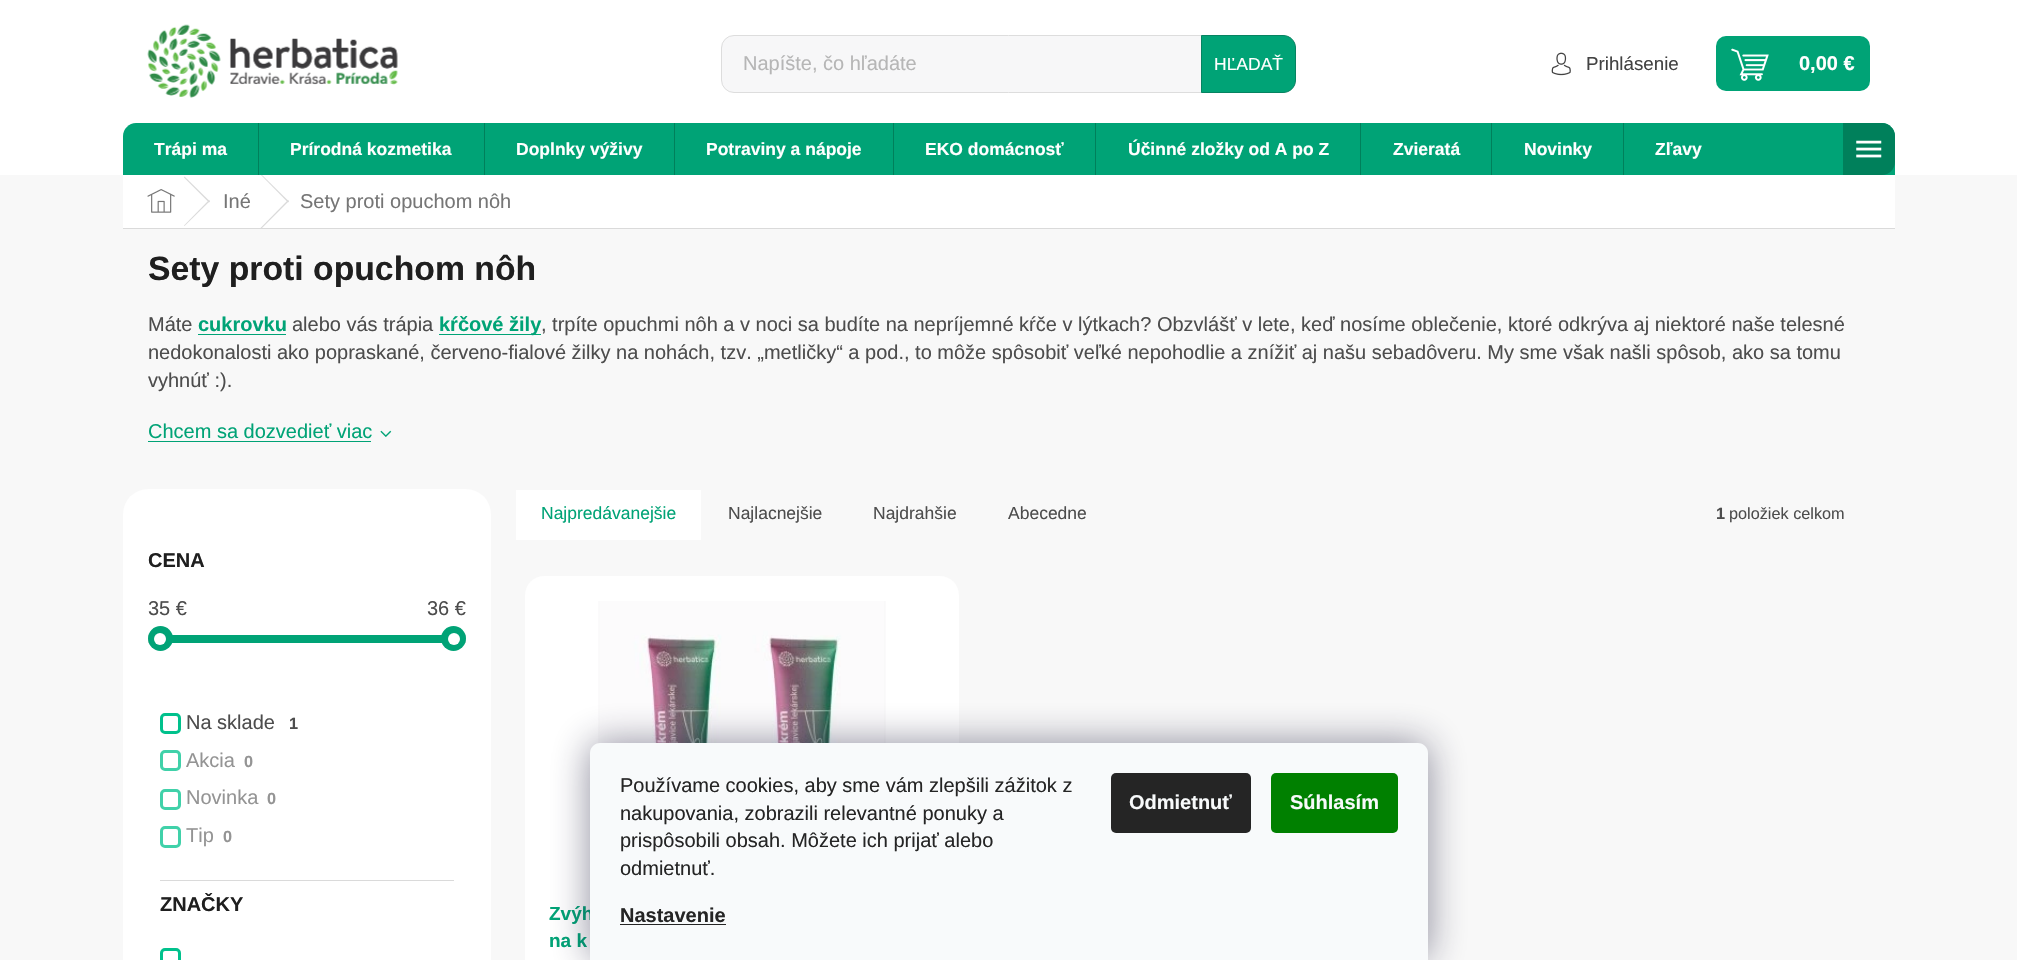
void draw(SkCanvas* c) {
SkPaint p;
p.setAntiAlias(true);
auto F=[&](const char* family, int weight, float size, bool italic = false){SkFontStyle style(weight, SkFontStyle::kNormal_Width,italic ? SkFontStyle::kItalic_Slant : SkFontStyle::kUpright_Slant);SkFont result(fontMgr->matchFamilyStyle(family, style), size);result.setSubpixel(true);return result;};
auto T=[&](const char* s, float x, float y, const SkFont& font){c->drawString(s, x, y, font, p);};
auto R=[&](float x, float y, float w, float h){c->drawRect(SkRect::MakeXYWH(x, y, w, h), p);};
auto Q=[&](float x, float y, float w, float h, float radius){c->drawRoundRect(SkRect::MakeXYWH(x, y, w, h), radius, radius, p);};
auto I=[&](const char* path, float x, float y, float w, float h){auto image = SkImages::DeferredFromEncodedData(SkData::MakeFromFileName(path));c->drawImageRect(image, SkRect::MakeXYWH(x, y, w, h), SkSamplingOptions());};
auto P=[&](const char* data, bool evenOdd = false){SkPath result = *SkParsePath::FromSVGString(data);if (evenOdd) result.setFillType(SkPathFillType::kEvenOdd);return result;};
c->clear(0xfff8f8f8);
p.setColor(0xffffffff);
R(123,175,1772,53);
p.setColor(0xffdadada);
c->drawPath(P("M260.5 174.5l.5-.5l28 27.5l-1 1z"),p);
p.setColor(0xffffffff);
R(0,0,2017,175);
I("1.png",147,24,251,74);
p.setColor(0xfff7f7f8);
c->drawRoundRect(SkRect::MakeXYWH(721.5,35.5,574,57),12.5,12.5,p);
p.setStroke(true);
p.setStrokeWidth(1);
p.setColor(0xffdddddd);
c->drawRoundRect(SkRect::MakeXYWH(721.5,35.5,574,57),12.5,12.5,p);
auto f1 = F("Liberation Sans",400,20);
p.setStroke(false);
p.setColor(0xffb6b6b6);
T("Napíšte, čo hľadáte",743,70,f1);
p.setColor(0xff00a376);
c->drawPath(P("M1201.5 35.5h81.5c7 0 12.5 5.5 12.5 12.5v32c0 7-5.5 12.5-12.5 12.5h-81.5z"),p);
p.setStroke(true);
p.setColor(0xff068361);
c->drawPath(P("M1201.5 35.5h81.5c7 0 12.5 5.5 12.5 12.5v32c0 7-5.5 12.5-12.5 12.5h-81.5z"),p);
auto f2 = F("Liberation Sans",400,17.5);
p.setStroke(false);
p.setColor(0xffffffff);
T("HĽADAŤ",1214,70,f2);
I("2.png",1551,52,20,24);
auto f3 = F("Liberation Sans",400,18.75);
p.setColor(0xff424242);
T("Prihlásenie",1586,70,f3);
p.setColor(0xff00a376);
Q(1716,36,154,55,10);
I("3.png",1731,48,38,33);
auto f4 = F("Liberation Sans",700,20);
p.setColor(0xffffffff);
T("0,00 €",1799,70,f4);
p.setColor(0xff00a376);
c->drawPath(P("M136 123h1746c7 0 13 6 13 13v39h-1772v-39c0-7 6-13 13-13z"),p);
auto f5 = F("Liberation Sans",700,17.5);
p.setColor(0xffffffff);
T("Trápi ma",154,155,f5);
p.setColor(0xff00805b);
R(258,123,1,52);
p.setColor(0xffffffff);
T("Prírodná kozmetika",290,155,f5);
p.setColor(0xff00805b);
R(484,123,1,52);
p.setColor(0xffffffff);
T("Doplnky výživy",516,155,f5);
p.setColor(0xff00805b);
R(674,123,1,52);
p.setColor(0xffffffff);
T("Potraviny a nápoje",706,155,f5);
p.setColor(0xff00805b);
R(893,123,1,52);
p.setColor(0xffffffff);
T("EKO domácnosť",925,155,f5);
p.setColor(0xff00805b);
R(1095,123,1,52);
p.setColor(0xffffffff);
T("Účinné zložky od A po Z",1128,155,f5);
p.setColor(0xff00805b);
R(1360,123,1,52);
p.setColor(0xffffffff);
T("Zvieratá",1393,155,f5);
p.setColor(0xff00805b);
R(1491,123,1,52);
p.setColor(0xffffffff);
T("Novinky",1524,155,f5);
p.setColor(0xff00805b);
R(1623,123,1,52);
p.setColor(0xffffffff);
T("Zľavy",1655,155,f5);
p.setColor(0xff00805b);
c->drawPath(P("M1843 123h39c7 0 13 6 13 13v26c0 7-6 13-13 13h-39z"),p);
I("4.png",1856,140,26,18);
p.setColor(0xffdadada);
R(123,228,1772,1);
I("5.png",147,189,28,24);
c->drawPath(P("M184 177.5l.5-1l25.5 25l-1 1z"),p);
c->drawPath(P("M209 200l1 1l-25.5 25l-.5-.5z"),p);
p.setColor(0xff767676);
T("Iné",223,208,f1);
p.setColor(0xffdadada);
c->drawPath(P("M288 200l1 1l-28 28l-.5-1z"),p);
p.setColor(0xff767676);
T("Sety proti opuchom nôh",300,208,f1);
auto f6 = F("Liberation Sans",700,33.75);
p.setColor(0xff1f1f1f);
T("Sety proti opuchom nôh",148,280,f6);
p.setColor(0xff4d4d4d);
T("Máte",148,331,f1);
p.setColor(0xff00a376);
T("cukrovku",198,331,f4);
R(198,334,88,1);
p.setColor(0xff4d4d4d);
T("alebo vás trápia",292,331,f1);
p.setColor(0xff00a376);
R(439,334,102,1);
T("kŕčové žily",439,331,f4);
p.setColor(0xff4d4d4d);
T(", trpíte opuchmi nôh a v noci sa budíte na nepríjemné kŕče v lýtkach? Obzvlášť v lete, keď nosíme oblečenie, ktoré odkrýva aj niektoré naše telesné",541,331,f1);
T("nedokonalosti ako popraskané, červeno-fialové žilky na nohách, tzv. „metličky“ a pod., to môže spôsobiť veľké nepohodlie a znížiť aj našu sebadôveru. My sme však našli spôsob, ako sa tomu",148,359,f1);
T("vyhnúť :).",148,387,f1);
p.setColor(0xff00a376);
T("Chcem sa dozvedieť viac",148,438,f1);
R(148,441,223,1);
I("6.png",380,430,12,7);
p.setColor(0xffffffff);
Q(123,489,368,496,25);
p.setColor(0xff1f1f1f);
T("CENA",148,567,f4);
p.setColor(0xff4d4d4d);
T("35 €",148,615,f1);
T("36 €",427,615,f1);
p.setColor(0xffdadada);
R(148,635,318,8);
p.setColor(0xff00a376);
R(172,635,270,8);
c->drawCircle(160.5,638.5,12.5,p);
p.setColor(0xffffffff);
c->drawCircle(160,639,6,p);
p.setColor(0xff00a376);
c->drawCircle(453.5,638.5,12.5,p);
p.setColor(0xffffffff);
c->drawCircle(454,639,6,p);
p.setStroke(true);
p.setStrokeWidth(3);
p.setColor(0xff00c18c);
c->drawRoundRect(SkRect::MakeXYWH(161.5,714.5,18,18),3.5,3.5,p);
p.setStroke(false);
p.setColor(0xff4d4d4d);
T("Na sklade",186,729,f1);
auto f7 = F("Liberation Sans",700,16.25);
T("1",289,729,f7);
p.setStroke(true);
p.setColor(0xff40d1a9);
c->drawRoundRect(SkRect::MakeXYWH(161.5,751.5,18,18),3.5,3.5,p);
p.setStroke(false);
p.setColor(0xff949494);
T("Akcia",186,767,f1);
T("0",244,767,f7);
p.setStroke(true);
p.setColor(0xff40d1a9);
c->drawRoundRect(SkRect::MakeXYWH(161.5,790.5,18,18),3.5,3.5,p);
p.setStroke(false);
p.setColor(0xff949494);
T("Novinka",186,804,f1);
T("0",267,804,f7);
p.setStroke(true);
p.setColor(0xff40d1a9);
c->drawRoundRect(SkRect::MakeXYWH(161.5,827.5,18,19),3.5,3.5,p);
p.setStroke(false);
p.setColor(0xff949494);
T("Tip",186,842,f1);
T("0",223,842,f7);
p.setColor(0xffdadada);
R(160,880,294,1);
p.setColor(0xff1f1f1f);
T("ZNAČKY",160,911,f4);
p.setStroke(true);
p.setColor(0xff00c18c);
c->drawRoundRect(SkRect::MakeXYWH(161.5,949.5,18,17),3.5,3.5,p);
p.setStroke(false);
p.setColor(0xffffffff);
R(516,490,185,50);
p.setColor(0xff00a376);
T("Najpredávanejšie",541,519,f2);
p.setColor(0xff4d4d4d);
T("Najlacnejšie",728,519,f2);
T("Najdrahšie",873,519,f2);
T("Abecedne",1008,519,f2);
T("1",1716,519,f7);
auto f8 = F("Liberation Sans",400,16.25);
T("položiek celkom",1729,519,f8);
p.setColor(0xffffffff);
Q(525,576,434,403,19);
I("7.png",598,601,288,143);
auto f9 = F("Liberation Sans",700,19);
p.setColor(0xff00a376);
T("Zvýh",549,920,f9);
T("na k",549,947,f9);
p.setColor(0x801b1939);
p.setMaskFilter(SkMaskFilter::MakeBlur(kNormal_SkBlurStyle, 19));
c->drawRoundRect(SkRect::MakeXYWH(590,743,838,217),10,10,p);
p.setMaskFilter(nullptr);
p.setColor(0xfff8fafb);
c->drawPath(P("M600 743h818c5.5 0 10 4.5 10 10v207h-838v-207c0-5.5 4.5-10 10-10z"),p);
p.setColor(0xff252525);
T("Používame cookies, aby sme vám zlepšili zážitok z",620,792,f1);
T("nakupovania, zobrazili relevantné ponuky a",620,820,f1);
T("prispôsobili obsah. Môžete ich prijať alebo",620,847,f1);
T("odmietnuť.",620,875,f1);
T("Nastavenie",620,922,f4);
R(620,924,106,1);
Q(1111,773,140,60,5);
p.setColor(0xfff8fafb);
T("Odmietnuť",1129,809,f4);
p.setColor(0xff008000);
Q(1271,773,127,60,5);
p.setColor(0xfff8fafb);
T("Súhlasím",1290,809,f4);
}
